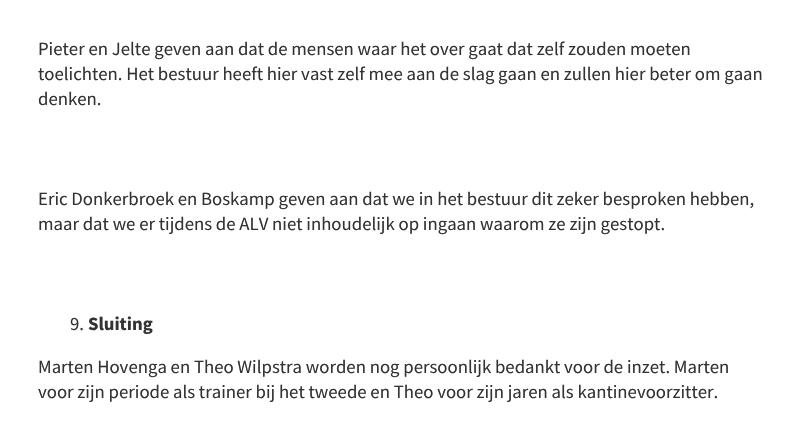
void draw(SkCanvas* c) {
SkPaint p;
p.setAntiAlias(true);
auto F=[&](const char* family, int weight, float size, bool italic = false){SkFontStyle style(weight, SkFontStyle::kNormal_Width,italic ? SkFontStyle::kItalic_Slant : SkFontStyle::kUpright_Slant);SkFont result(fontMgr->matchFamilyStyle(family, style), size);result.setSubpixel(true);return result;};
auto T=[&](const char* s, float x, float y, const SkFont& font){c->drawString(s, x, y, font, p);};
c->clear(0xffffffff);
auto f1 = F("Source Sans Pro",400,18.75);
p.setColor(0xff333333);
T("Pieter en Jelte geven aan dat de mensen waar het over gaat dat zelf zouden moeten",38,55,f1);
T("toelichten. Het bestuur heeft hier vast zelf mee aan de slag gaan en zullen hier beter om gaan",38,80,f1);
T("denken.",38,105,f1);
T("Eric Donkerbroek en Boskamp geven aan dat we in het bestuur dit zeker besproken hebben,",38,205,f1);
T("maar dat we er tijdens de ALV niet inhoudelijk op ingaan waarom ze zijn gestopt.",38,230,f1);
T("9.",70,330,f1);
auto f2 = F("Source Sans Pro",700,18.75);
T("Sluiting",88,330,f2);
T("Marten Hovenga en Theo Wilpstra worden nog persoonlijk bedankt voor de inzet. Marten",38,373,f1);
T("voor zijn periode als trainer bij het tweede en Theo voor zijn jaren als kantinevoorzitter.",38,398,f1);
}
